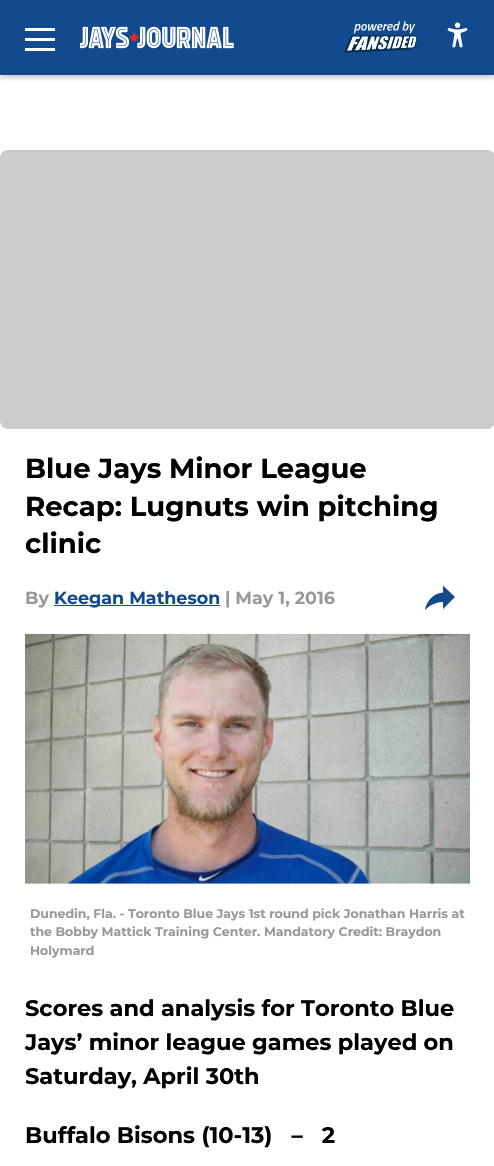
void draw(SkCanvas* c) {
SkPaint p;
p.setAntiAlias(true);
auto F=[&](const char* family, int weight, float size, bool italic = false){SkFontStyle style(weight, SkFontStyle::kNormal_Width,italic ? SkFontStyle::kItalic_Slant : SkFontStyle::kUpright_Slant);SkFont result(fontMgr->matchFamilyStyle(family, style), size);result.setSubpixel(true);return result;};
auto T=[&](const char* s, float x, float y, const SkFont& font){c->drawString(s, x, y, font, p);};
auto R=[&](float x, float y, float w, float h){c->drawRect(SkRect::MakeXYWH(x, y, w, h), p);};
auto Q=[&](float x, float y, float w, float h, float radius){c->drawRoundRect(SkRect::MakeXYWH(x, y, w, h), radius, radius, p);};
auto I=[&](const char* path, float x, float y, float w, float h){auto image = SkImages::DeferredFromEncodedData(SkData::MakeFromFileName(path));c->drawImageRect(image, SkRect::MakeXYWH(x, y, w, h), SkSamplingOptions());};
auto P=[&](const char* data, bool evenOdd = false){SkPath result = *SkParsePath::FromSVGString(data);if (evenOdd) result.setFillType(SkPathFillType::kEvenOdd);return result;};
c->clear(0xffffffff);
p.setColor(0x33000000);
p.setMaskFilter(SkMaskFilter::MakeBlur(kNormal_SkBlurStyle, 2.5));
c->drawRect(SkRect::MakeXYWH(0,3,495,75),p);
p.setMaskFilter(nullptr);
p.setColor(0xff134a8e);
R(0,0,494,75);
p.setColor(0xffffffff);
R(25,28,30,3);
R(25,38,30,3);
R(25,48,30,3);
I("1.png",80,26,154,23);
I("2.png",344,21,74,32);
I("3.png",447,22,21,26);
p.setColor(0xffcccccc);
Q(0,150,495,279,8);
auto f1 = F("Montserrat",100,27.5);
p.setColor(0xff000000);
T("Blue Jays Minor League",25,478,f1);
T("Recap: Lugnuts win pitching",25,516,f1);
T("clinic",25,553,f1);
auto f2 = F("Montserrat",100,17.5);
p.setColor(0xff999999);
T("By",25,604,f2);
p.setColor(0xff134a8e);
R(54,605,166,1);
T("Keegan Matheson",54,604,f2);
p.setColor(0xff999999);
T("| May 1, 2016",225,604,f2);
p.setColor(0xff134a8e);
c->drawPath(P("M443 609v-7c0 0-10-.5-18 8c0 0 2-15.5 18-17.5v-7l12 11.5z"),p);
p.setColor(0xfff7f7f7);
R(25,883,445,1);
I("4.png",25,633,445,251);
auto f3 = F("Montserrat",100,12.5);
p.setColor(0xff999999);
T("Dunedin, Fla. - Toronto Blue Jays 1st round pick Jonathan Harris at",30,918,f3);
T("the Bobby Mattick Training Center. Mandatory Credit: Braydon",30,936,f3);
T("Holymard",30,955,f3);
auto f4 = F("Montserrat",100,22.5);
p.setColor(0xff000000);
T("Scores and analysis for Toronto Blue",25,1016,f4);
T("Jays’ minor league games played on",25,1050,f4);
T("Saturday, April 30th",25,1084,f4);
T("Buffalo Bisons (10-13)   –   2",25,1143,f4);
}
